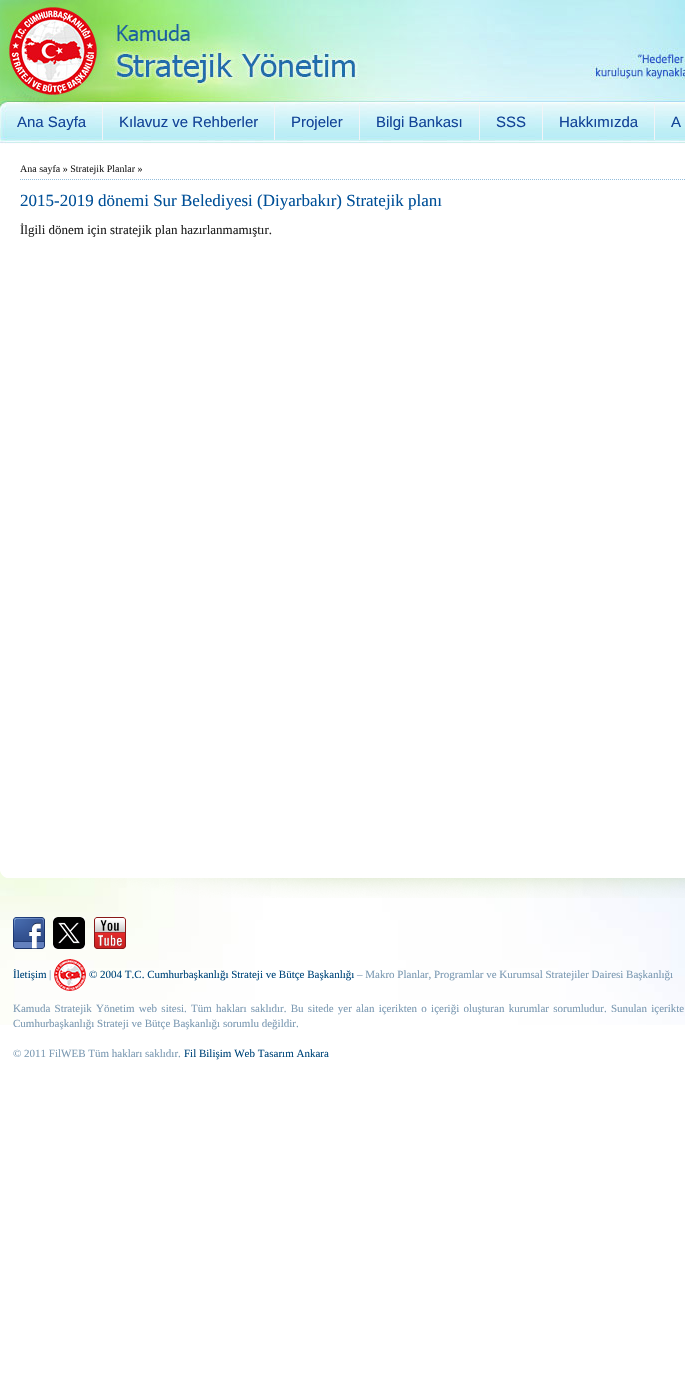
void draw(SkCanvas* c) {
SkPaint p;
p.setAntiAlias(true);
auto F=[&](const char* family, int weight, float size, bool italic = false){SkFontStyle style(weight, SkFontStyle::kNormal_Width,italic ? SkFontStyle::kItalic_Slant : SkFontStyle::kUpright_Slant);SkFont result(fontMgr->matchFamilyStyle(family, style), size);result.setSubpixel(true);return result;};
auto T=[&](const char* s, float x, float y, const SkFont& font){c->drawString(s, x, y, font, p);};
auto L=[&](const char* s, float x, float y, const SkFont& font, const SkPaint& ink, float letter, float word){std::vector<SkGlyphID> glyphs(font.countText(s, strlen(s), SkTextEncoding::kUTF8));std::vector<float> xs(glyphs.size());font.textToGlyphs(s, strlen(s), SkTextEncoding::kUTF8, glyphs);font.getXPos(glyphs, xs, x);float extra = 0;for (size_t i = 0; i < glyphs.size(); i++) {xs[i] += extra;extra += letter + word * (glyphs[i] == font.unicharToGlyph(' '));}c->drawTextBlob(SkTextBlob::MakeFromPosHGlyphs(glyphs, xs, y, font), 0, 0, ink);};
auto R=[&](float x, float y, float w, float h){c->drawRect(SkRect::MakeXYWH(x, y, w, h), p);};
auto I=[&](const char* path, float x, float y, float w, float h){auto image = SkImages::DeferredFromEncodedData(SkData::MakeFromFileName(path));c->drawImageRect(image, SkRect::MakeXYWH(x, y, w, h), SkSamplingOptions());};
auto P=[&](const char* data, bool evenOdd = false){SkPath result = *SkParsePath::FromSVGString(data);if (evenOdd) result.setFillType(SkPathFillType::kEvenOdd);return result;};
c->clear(0xffffffff);
I("1.png",0,870,685,155);
I("2.png",0,0,685,144);
p.setColor(0xfff2f4f7);
R(102,103,1,37);
auto f1 = F("Liberation Sans",400,15);
p.setColor(0xff134497);
T("Ana Sayfa",17,127,f1);
p.setColor(0xfff2f4f7);
R(274,103,1,37);
p.setColor(0xff134497);
T("Kılavuz ve Rehberler",119,127,f1);
p.setColor(0xfff2f4f7);
R(359,103,1,37);
p.setColor(0xff134497);
T("Projeler",291,127,f1);
p.setColor(0xfff2f4f7);
R(479,103,1,37);
p.setColor(0xff134497);
T("Bilgi Bankası",376,127,f1);
p.setColor(0xfff2f4f7);
R(542,103,1,37);
p.setColor(0xff134497);
T("SSS",496,127,f1);
p.setColor(0xfff2f4f7);
R(654,103,1,37);
p.setColor(0xff134497);
T("Hakkımızda",559,127,f1);
T("A",671,127,f1);
p.setStroke(true);
p.setStrokeWidth(1);
p.setColor(0xff93bddb);
p.setPathEffect(SkDashPathEffect::Make({{1,1}}, 0));
c->drawPath(P("M20 179.5h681"),p);
p.setPathEffect(nullptr);
auto f2 = F("Liberation Serif",400,10);
p.setStroke(false);
p.setColor(0xff222222);
T("Ana sayfa » Stratejik Planlar »",20,172,f2);
auto f3 = F("Liberation Serif",400,17);
p.setColor(0xff005098);
T("2015-2019 dönemi Sur Belediyesi (Diyarbakır) Stratejik planı",20,206,f3);
auto f4 = F("Liberation Serif",400,13);
p.setColor(0xff222222);
T("İlgili dönem için stratejik plan hazırlanmamıştır.",20,234,f4);
I("3.png",0,868,685,30);
I("4.png",13,917,32,32);
I("5.png",53,917,32,32);
I("6.png",94,917,32,32);
auto f5 = F("Liberation Serif",400,11);
p.setColor(0xff00477b);
T("İletişim",13,978,f5);
p.setColor(0xff7c9ab3);
T("|",49,978,f5);
I("7.png",54,959,32,32);
p.setColor(0xff00477b);
T("© 2004 T.C. Cumhurbaşkanlığı Strateji ve Bütçe Başkanlığı",89,978,f5);
p.setColor(0xff7c9ab3);
T("– Makro Planlar, Programlar ve Kurumsal Stratejiler Dairesi Başkanlığı",357,978,f5);
L("Kamuda Stratejik Yönetim web sitesi. Tüm hakları saklıdır. Bu sitede yer alan içerikten o içeriği oluşturan kurumlar sorumludur. Sunulan içerikte",13,1012,f5,p,0,1.5);
T("Cumhurbaşkanlığı Strateji ve Bütçe Başkanlığı sorumlu değildir.",13,1027,f5);
T("© 2011 FilWEB Tüm hakları saklıdır.",13,1057,f5);
p.setColor(0xff00477b);
T("Fil Bilişim Web Tasarım Ankara",184,1057,f5);
}
